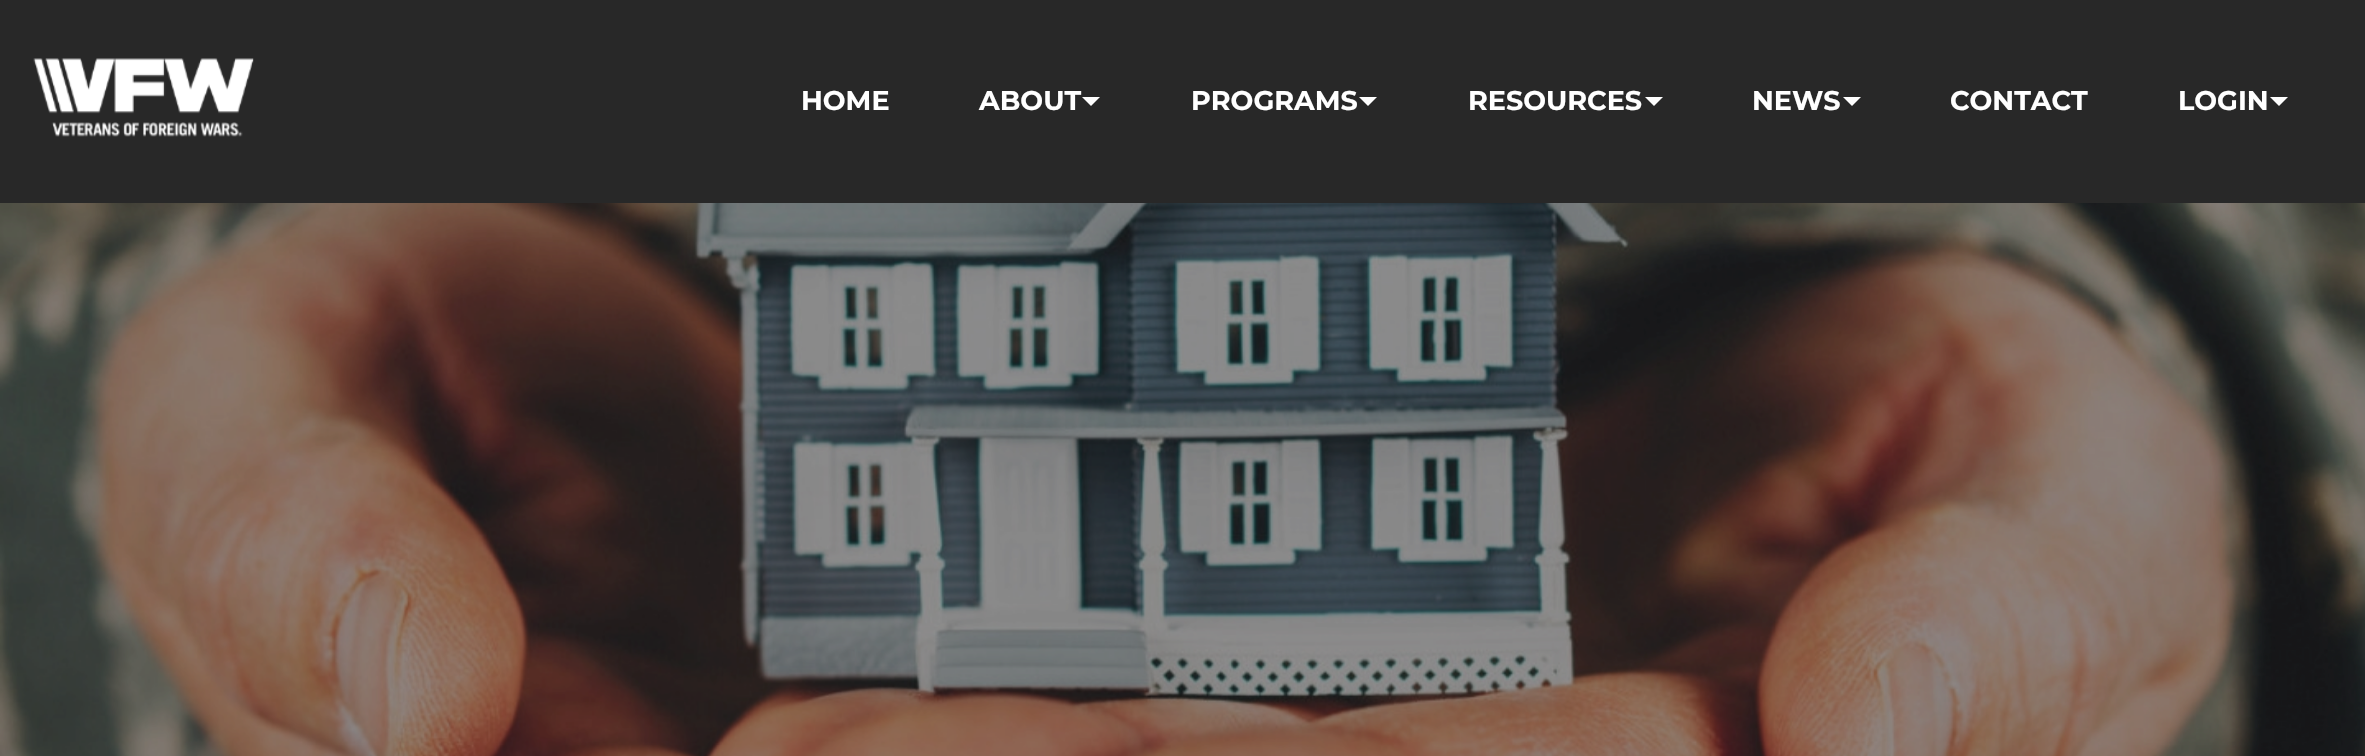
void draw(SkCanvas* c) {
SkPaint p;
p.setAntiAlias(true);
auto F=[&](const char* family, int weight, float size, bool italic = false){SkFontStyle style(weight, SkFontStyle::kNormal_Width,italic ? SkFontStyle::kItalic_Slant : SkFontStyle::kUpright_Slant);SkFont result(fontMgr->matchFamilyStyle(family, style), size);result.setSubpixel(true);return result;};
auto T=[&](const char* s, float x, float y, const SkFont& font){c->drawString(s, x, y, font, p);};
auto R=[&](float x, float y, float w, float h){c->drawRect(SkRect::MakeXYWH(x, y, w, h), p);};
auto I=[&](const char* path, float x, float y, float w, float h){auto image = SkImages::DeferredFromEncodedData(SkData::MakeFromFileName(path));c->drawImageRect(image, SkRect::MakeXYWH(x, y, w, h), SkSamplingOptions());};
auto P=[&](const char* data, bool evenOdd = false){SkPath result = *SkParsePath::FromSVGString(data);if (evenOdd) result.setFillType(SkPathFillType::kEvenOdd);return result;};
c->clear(0xffffffff);
p.setColor(0xff282828);
R(0,0,2365,203);
I("1.png",33,58,221,79);
auto f1 = F("Montserrat",700,27);
p.setColor(0xffffffff);
T("HOME",801,110,f1);
T("ABOUT",979,110,f1);
c->drawPath(P("M1082 97h18l-9 9z"),p);
T("PROGRAMS",1191,110,f1);
c->drawPath(P("M1359 97h18l-9 9z"),p);
T("RESOURCES",1468,110,f1);
c->drawPath(P("M1645 97h18l-9 9z"),p);
T("NEWS",1752,110,f1);
c->drawPath(P("M1843 97h18l-9 9z"),p);
T("CONTACT",1950,110,f1);
T("LOGIN",2178,110,f1);
c->drawPath(P("M2270 97h18l-9 9z"),p);
I("2.png",0,203,2365,553);
}
